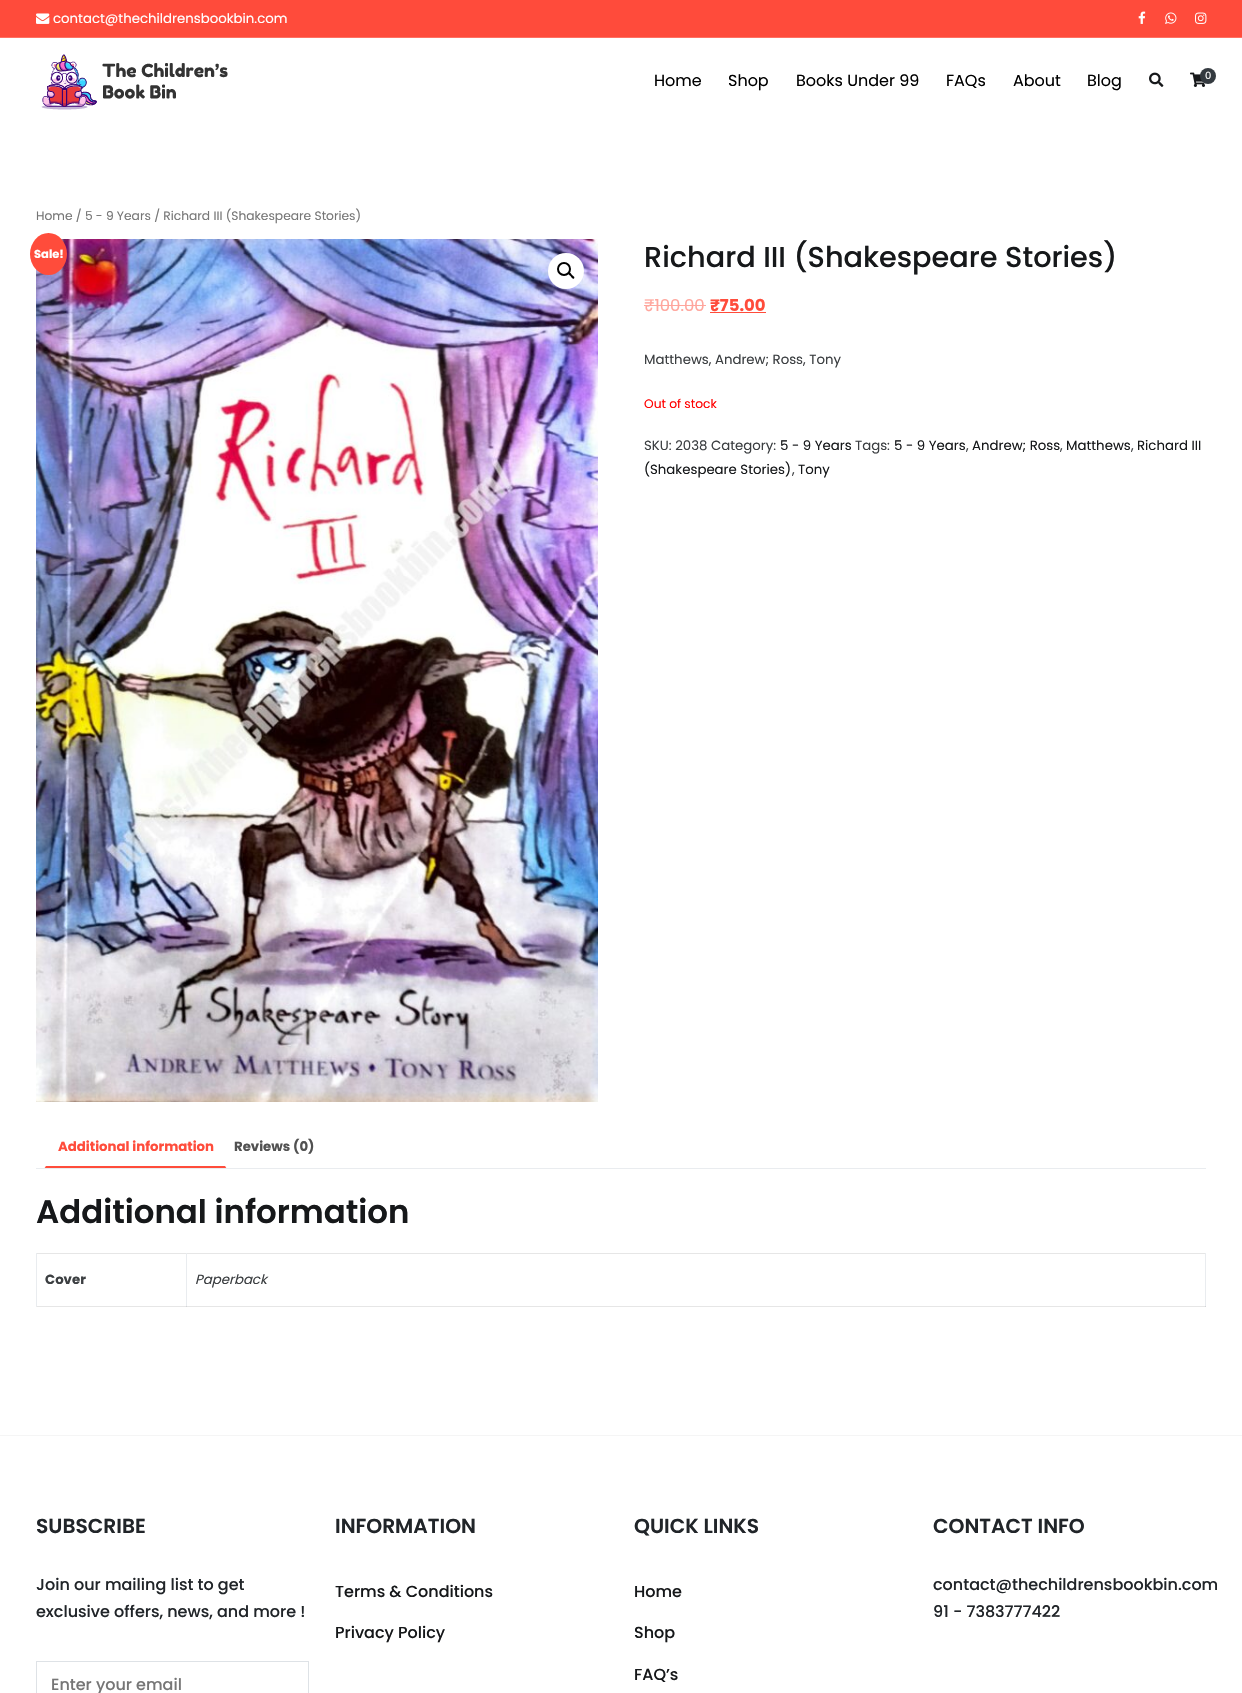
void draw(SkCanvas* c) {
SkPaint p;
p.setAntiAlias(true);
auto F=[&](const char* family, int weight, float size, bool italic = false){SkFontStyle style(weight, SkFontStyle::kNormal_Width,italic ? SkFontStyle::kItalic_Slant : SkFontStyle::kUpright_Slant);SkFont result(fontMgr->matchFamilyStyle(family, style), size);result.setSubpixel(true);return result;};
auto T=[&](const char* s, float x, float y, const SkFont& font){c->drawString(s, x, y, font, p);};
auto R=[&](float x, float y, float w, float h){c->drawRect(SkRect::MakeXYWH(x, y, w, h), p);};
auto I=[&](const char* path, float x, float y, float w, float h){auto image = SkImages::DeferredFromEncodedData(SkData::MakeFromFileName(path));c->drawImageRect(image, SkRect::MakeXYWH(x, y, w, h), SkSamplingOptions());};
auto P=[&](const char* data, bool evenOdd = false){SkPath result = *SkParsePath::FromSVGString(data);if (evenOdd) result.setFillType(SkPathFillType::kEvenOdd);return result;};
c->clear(0xffffffff);
p.setColor(0xffe6e6e6);
R(36,1306,1170,1);
p.setColor(0xffff4b3b);
R(0,0,1242,37);
p.setColor(0xffff7062);
R(0,37,1242,1);
I("1.png",36,13,14,11);
auto f1 = F("Poppins",400,13.3);
p.setColor(0xffffffff);
T("contact@thechildrensbookbin.com",53,23,f1);
I("2.png",1138,11,8,13);
I("3.png",1165,12,12,12);
I("4.png",1195,12,12,12);
I("5.png",41,54,187,56);
auto f2 = F("Poppins",400,16);
p.setColor(0xff000000);
T("Home",654,86,f2);
T("Shop",728,86,f2);
T("Books Under 99",796,86,f2);
T("FAQs",946,86,f2);
T("About",1013,86,f2);
T("Blog",1087,86,f2);
I("6.png",1149,72,15,15);
I("7.png",1190,72,16,15);
p.setColor(0xff343a40);
c->drawCircle(1208,76,8,p);
auto f3 = F("Poppins",400,10);
p.setColor(0xffffffff);
T("0",1205,79,f3);
auto f4 = F("Poppins",400,12.25);
p.setColor(0xff767676);
T("Home / 5 - 9 Years / Richard III (Shakespeare Stories)",36,220,f4);
I("8.png",36,239,562,863);
p.setColor(0xffffffff);
c->drawCircle(566,271,18,p);
p.setStroke(true);
p.setStrokeWidth(2);
p.setColor(0xff000000);
c->drawCircle(564,269,6,p);
p.setStroke(false);
c->drawPath(P("M568.5 272.5c1-1 3 1.5 3.5 2.5c.5 .5 3.5 2 2 3.5c-1 1-3-1.5-3.5-2.5c-.5-.5-3-2-2-3.5z"),p);
auto f5 = F("Poppins",500,28.75);
p.setColor(0xff16181a);
T("Richard III (Shakespeare Stories)",644,267,f5);
auto f6 = F("Poppins",400,16.5);
p.setColor(0xffffa69d);
T("₹100.00",644,311,f6);
R(644,305,62,1);
auto f7 = F("Poppins",700,16.5);
p.setColor(0xffff4c3b);
T("₹75.00",710,311,f7);
R(710,312,56,1);
p.setColor(0xff3c3f42);
T("Matthews, Andrew; Ross, Tony",644,364,f1);
p.setColor(0xffff0000);
T("Out of stock",644,408,f4);
p.setColor(0xff3c3f42);
T("SKU: 2038 Category:",644,450,f1);
p.setColor(0xff16181a);
T("5 - 9 Years",780,450,f1);
p.setColor(0xff3c3f42);
T("Tags:",855,450,f1);
p.setColor(0xff16181a);
T("5 - 9 Years",894,450,f1);
p.setColor(0xff3c3f42);
T(",",966,450,f1);
p.setColor(0xff16181a);
T("Andrew; Ross",972,450,f1);
p.setColor(0xff3c3f42);
T(",",1060,450,f1);
p.setColor(0xff16181a);
T("Matthews",1066,450,f1);
p.setColor(0xff3c3f42);
T(",",1131,450,f1);
p.setColor(0xff16181a);
T("Richard III",1137,450,f1);
T("(Shakespeare Stories)",644,474,f1);
p.setColor(0xff3c3f42);
T(",",792,474,f1);
p.setColor(0xff16181a);
T("Tony",798,474,f1);
p.setColor(0xffff4c3b);
c->drawOval(SkRect::MakeXYWH(30,233,37,42),p);
auto f8 = F("Poppins",700,11.5);
p.setColor(0xffffffff);
T("Sale!",34,258,f8);
p.setColor(0xffe9ecef);
R(36,1168,1170,1);
p.setColor(0xffff4c3b);
R(44,1166,183,2);
auto f9 = F("Poppins",700,13.3);
T("Additional information",58,1151,f9);
c->save();
c->clipRect(SkRect::MakeXYWH(36,1129,1170,39));
p.setColor(0xffffffff);
c->drawPath(P("M41 1167v2c3.5 0 5-1.5 5-5h-2c-.5 1.5-1.5 2.5-3 3z"),p);
c->drawPath(P("M225 1164c0 3.5 1.5 5 5 5v-2c-1.5-.5-2.5-1.5-3-3z"),p);
c->restore();
p.setColor(0xff515151);
T("Reviews (0)",234,1151,f9);
auto f10 = F("Poppins",600,32.4);
p.setColor(0xff16181a);
T("Additional information",36,1223,f10);
p.setColor(0xffe6e6e6);
R(36,1253,1170,1);
p.setColor(0xffe9ecef);
R(36,1253,1,54);
p.setColor(0xff3c3f42);
T("Cover",45,1284,f9);
p.setColor(0xffe9ecef);
R(1205,1253,1,54);
p.setColor(0xffd2d4d7);
R(1205,1306,1,1);
p.setColor(0xffe9ecef);
R(186,1253,1,54);
p.setColor(0xffd2d4d7);
R(186,1306,1,1);
auto f11 = F("Poppins",400,13.3,true);
p.setColor(0xff3c3f42);
T("Paperback",195,1284,f11);
p.setColor(0xfff5f5f5);
R(0,1435,1242,1);
auto f12 = F("Poppins",600,20.25);
p.setColor(0xff212529);
T("SUBSCRIBE",36,1533,f12);
auto f13 = F("Poppins",500,16);
T("Join our mailing list to get",36,1590,f13);
T("exclusive offers, news, and more !",36,1617,f13);
p.setStroke(true);
p.setStrokeWidth(1);
p.setColor(0xffdee2e6);
c->drawRect(SkRect::MakeXYWH(36.5,1661.5,272,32),p);
p.setStroke(false);
p.setColor(0xff767676);
T("Enter your email",51,1690,f13);
p.setColor(0xff212529);
T("INFORMATION",335,1533,f12);
p.setColor(0xff16181a);
T("Terms & Conditions",335,1597,f13);
T("Privacy Policy",335,1638,f13);
p.setColor(0xff212529);
T("QUICK LINKS",634,1533,f12);
p.setColor(0xff16181a);
T("Home",634,1597,f13);
T("Shop",634,1638,f13);
T("FAQ’s",634,1680,f13);
p.setColor(0xff212529);
T("CONTACT INFO",933,1533,f12);
T("contact@thechildrensbookbin.com",933,1590,f13);
T("91 - 7383777422",933,1617,f13);
}
